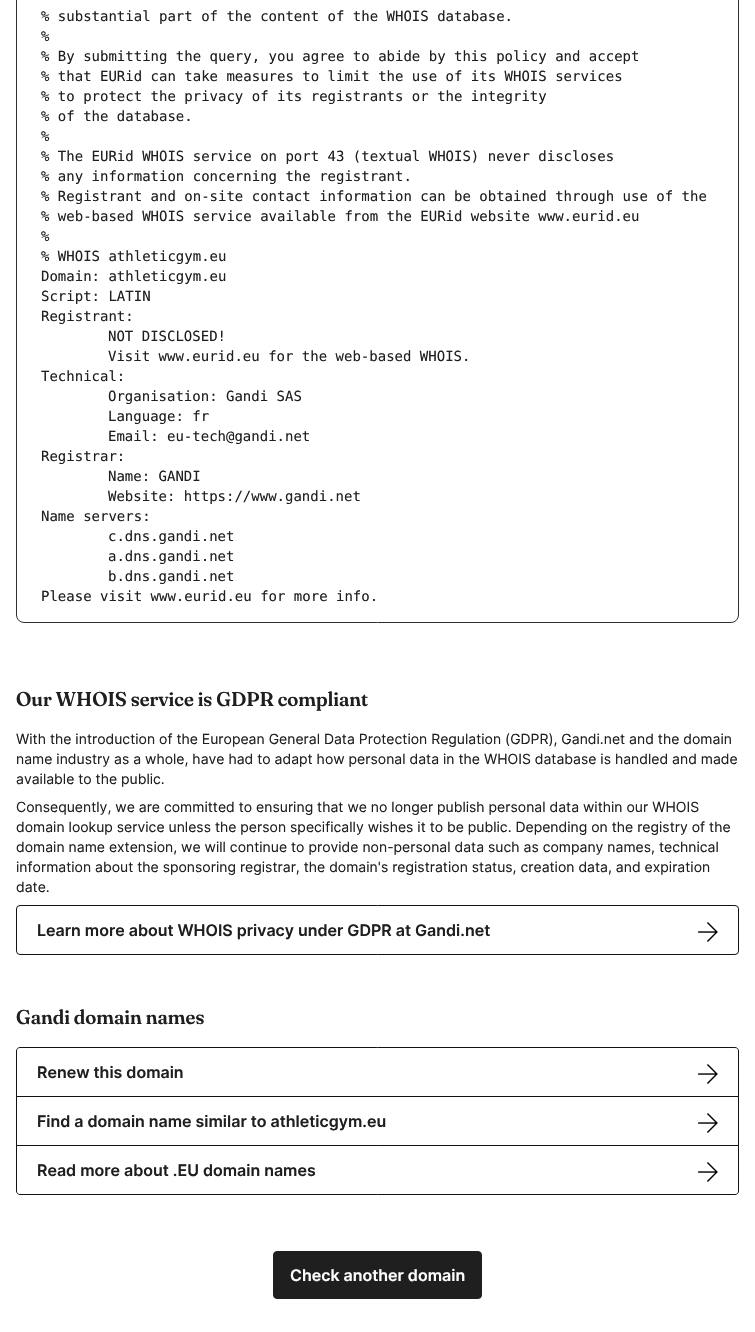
void draw(SkCanvas* c) {
SkPaint p;
p.setAntiAlias(true);
auto F=[&](const char* family, int weight, float size, bool italic = false){SkFontStyle style(weight, SkFontStyle::kNormal_Width,italic ? SkFontStyle::kItalic_Slant : SkFontStyle::kUpright_Slant);SkFont result(fontMgr->matchFamilyStyle(family, style), size);result.setSubpixel(true);return result;};
auto T=[&](const char* s, float x, float y, const SkFont& font){c->drawString(s, x, y, font, p);};
auto I=[&](const char* path, float x, float y, float w, float h){auto image = SkImages::DeferredFromEncodedData(SkData::MakeFromFileName(path));c->drawImageRect(image, SkRect::MakeXYWH(x, y, w, h), SkSamplingOptions());};
auto P=[&](const char* data, bool evenOdd = false){SkPath result = *SkParsePath::FromSVGString(data);if (evenOdd) result.setFillType(SkPathFillType::kEvenOdd);return result;};
c->clear(0xffffffff);
p.setStroke(true);
p.setStrokeWidth(1);
p.setColor(0xff2e2e2e);
c->drawRoundRect(SkRect::MakeXYWH(16.5,-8.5,722,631),7.5,7.5,p);
auto f1 = F("DejaVu Sans Mono",400,14);
p.setStroke(false);
p.setColor(0xff1f1f1f);
T("% substantial part of the content of the WHOIS database.",41,21,f1);
T("%",41,41,f1);
T("% By submitting the query, you agree to abide by this policy and accept",41,61,f1);
T("% that EURid can take measures to limit the use of its WHOIS services",41,81,f1);
T("% to protect the privacy of its registrants or the integrity",41,101,f1);
T("% of the database.",41,121,f1);
T("%",41,141,f1);
T("% The EURid WHOIS service on port 43 (textual WHOIS) never discloses",41,161,f1);
T("% any information concerning the registrant.",41,181,f1);
T("% Registrant and on-site contact information can be obtained through use of the",41,201,f1);
T("% web-based WHOIS service available from the EURid website www.eurid.eu",41,221,f1);
T("%",41,241,f1);
T("% WHOIS athleticgym.eu",41,261,f1);
T("Domain: athleticgym.eu",41,281,f1);
T("Script: LATIN",41,301,f1);
T("Registrant:",41,321,f1);
T("NOT DISCLOSED!",108,341,f1);
T("Visit www.eurid.eu for the web-based WHOIS.",108,361,f1);
T("Technical:",41,381,f1);
T("Organisation: Gandi SAS",108,401,f1);
T("Language: fr",108,421,f1);
T("Email: eu-tech@gandi.net",108,441,f1);
T("Registrar:",41,461,f1);
T("Name: GANDI",108,481,f1);
T("Website: https://www.gandi.net",108,501,f1);
T("Name servers:",41,521,f1);
T("c.dns.gandi.net",108,541,f1);
T("a.dns.gandi.net",108,561,f1);
T("b.dns.gandi.net",108,581,f1);
T("Please visit www.eurid.eu for more info.",41,601,f1);
auto f2 = F("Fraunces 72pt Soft",600,20);
T("Our WHOIS service is GDPR compliant",16,706,f2);
auto f3 = F("Inter",400,14);
T("With the introduction of the European General Data Protection Regulation (GDPR), Gandi.net and the domain",16,744,f3);
T("name industry as a whole, have had to adapt how personal data in the WHOIS database is handled and made",16,764,f3);
T("available to the public.",16,784,f3);
T("Consequently, we are committed to ensuring that we no longer publish personal data within our WHOIS",16,812,f3);
T("domain lookup service unless the person specifically wishes it to be public. Depending on the registry of the",16,832,f3);
T("domain name extension, we will continue to provide non-personal data such as company names, technical",16,852,f3);
T("information about the sponsoring registrar, the domain's registration status, creation data, and expiration",16,872,f3);
T("date.",16,892,f3);
p.setStroke(true);
p.setColor(0xff121212);
c->drawRoundRect(SkRect::MakeXYWH(16.5,905.5,722,49),3.5,3.5,p);
auto f4 = F("Inter",600,16);
p.setStroke(false);
p.setColor(0xff1f1f1f);
T("Learn more about WHOIS privacy under GDPR at Gandi.net",37,936,f4);
I("1.png",698,922,20,20);
T("Gandi domain names",16,1024,f2);
p.setStroke(true);
p.setColor(0xff121212);
c->drawPath(P("M20 1047.5h715c2 0 3.5 1.5 3.5 3.5v45.5h-722v-45.5c0-2 1.5-3.5 3.5-3.5z"),p);
p.setStroke(false);
p.setColor(0xff1f1f1f);
T("Renew this domain",37,1078,f4);
I("1.png",698,1064,20,20);
p.setStroke(true);
p.setColor(0xff121212);
c->drawRect(SkRect::MakeXYWH(16.5,1096.5,722,49),p);
p.setStroke(false);
p.setColor(0xff1f1f1f);
T("Find a domain name similar to athleticgym.eu",37,1127,f4);
I("1.png",698,1113,20,20);
p.setColor(0xffffffff);
c->drawPath(P("M16.5 1145.5h722v45.5c0 2-1.5 3.5-3.5 3.5h-715c-2 0-3.5-1.5-3.5-3.5z"),p);
p.setStroke(true);
p.setColor(0xff121212);
c->drawPath(P("M16.5 1145.5h722v45.5c0 2-1.5 3.5-3.5 3.5h-715c-2 0-3.5-1.5-3.5-3.5z"),p);
p.setStroke(false);
p.setColor(0xff1f1f1f);
T("Read more about .EU domain names",37,1176,f4);
I("1.png",698,1162,20,20);
c->drawRoundRect(SkRect::MakeXYWH(273.5,1251.5,208,47),3.5,3.5,p);
p.setStroke(true);
c->drawRoundRect(SkRect::MakeXYWH(273.5,1251.5,208,47),3.5,3.5,p);
p.setStroke(false);
p.setColor(0xffffffff);
T("Check another domain",290,1281,f4);
}
